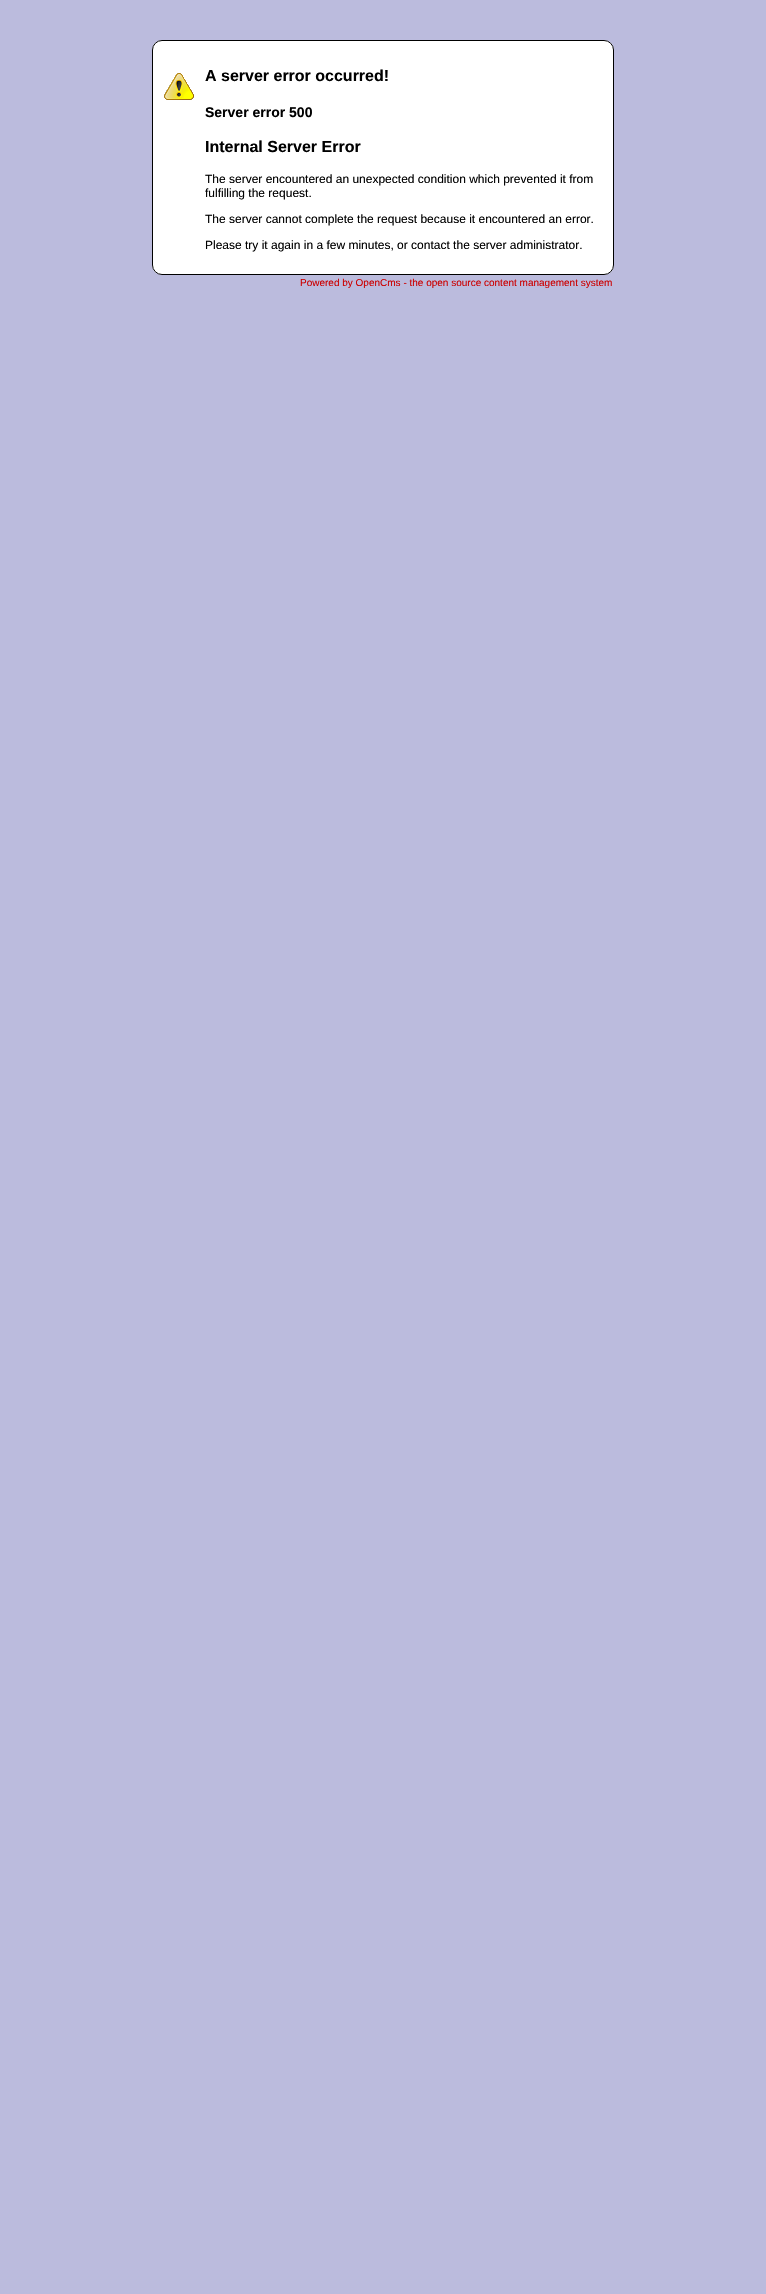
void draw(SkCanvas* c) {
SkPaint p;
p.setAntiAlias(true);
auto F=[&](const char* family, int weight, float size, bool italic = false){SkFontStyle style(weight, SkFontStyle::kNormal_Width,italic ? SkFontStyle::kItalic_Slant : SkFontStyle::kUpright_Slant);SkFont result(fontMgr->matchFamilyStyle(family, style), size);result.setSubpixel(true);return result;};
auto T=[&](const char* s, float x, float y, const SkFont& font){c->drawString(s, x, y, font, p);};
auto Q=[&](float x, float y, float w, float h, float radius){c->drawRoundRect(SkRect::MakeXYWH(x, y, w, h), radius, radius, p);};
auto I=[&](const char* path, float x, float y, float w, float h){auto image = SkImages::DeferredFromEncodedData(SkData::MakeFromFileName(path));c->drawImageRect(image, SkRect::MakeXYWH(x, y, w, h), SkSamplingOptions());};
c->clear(0xffbbbbdd);
p.setColor(0xffffffff);
Q(152,40,462,235,10);
I("1.png",164,73,30,27);
p.setStroke(true);
p.setStrokeWidth(1);
p.setColor(0xff000000);
c->drawRoundRect(SkRect::MakeXYWH(152.5,40.5,461,234),9.5,9.5,p);
auto f1 = F("Liberation Sans",700,16);
p.setStroke(false);
T("A server error occurred!",205,81,f1);
auto f2 = F("Liberation Sans",700,14);
T("Server error 500",205,117,f2);
T("Internal Server Error",205,152,f1);
auto f3 = F("Liberation Sans",400,12);
T("The server encountered an unexpected condition which prevented it from",205,183,f3);
T("fulfilling the request.",205,197,f3);
T("The server cannot complete the request because it encountered an error.",205,223,f3);
T("Please try it again in a few minutes, or contact the server administrator.",205,249,f3);
auto f4 = F("Liberation Sans",400,10);
p.setColor(0xffcc0000);
T("Powered by OpenCms - the open source content management system",300,286,f4);
}
